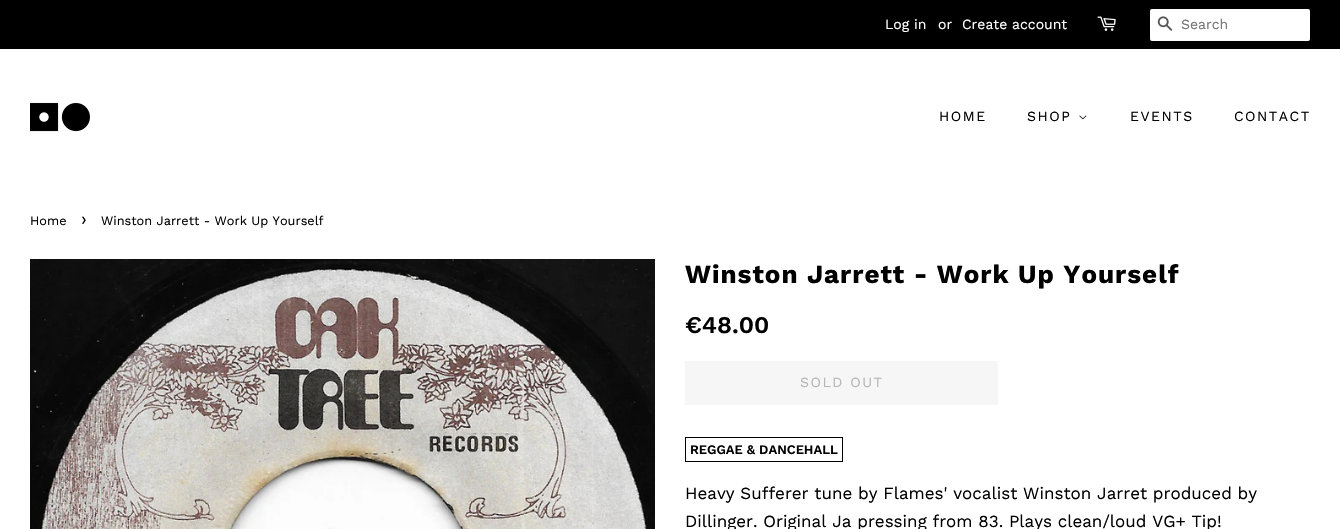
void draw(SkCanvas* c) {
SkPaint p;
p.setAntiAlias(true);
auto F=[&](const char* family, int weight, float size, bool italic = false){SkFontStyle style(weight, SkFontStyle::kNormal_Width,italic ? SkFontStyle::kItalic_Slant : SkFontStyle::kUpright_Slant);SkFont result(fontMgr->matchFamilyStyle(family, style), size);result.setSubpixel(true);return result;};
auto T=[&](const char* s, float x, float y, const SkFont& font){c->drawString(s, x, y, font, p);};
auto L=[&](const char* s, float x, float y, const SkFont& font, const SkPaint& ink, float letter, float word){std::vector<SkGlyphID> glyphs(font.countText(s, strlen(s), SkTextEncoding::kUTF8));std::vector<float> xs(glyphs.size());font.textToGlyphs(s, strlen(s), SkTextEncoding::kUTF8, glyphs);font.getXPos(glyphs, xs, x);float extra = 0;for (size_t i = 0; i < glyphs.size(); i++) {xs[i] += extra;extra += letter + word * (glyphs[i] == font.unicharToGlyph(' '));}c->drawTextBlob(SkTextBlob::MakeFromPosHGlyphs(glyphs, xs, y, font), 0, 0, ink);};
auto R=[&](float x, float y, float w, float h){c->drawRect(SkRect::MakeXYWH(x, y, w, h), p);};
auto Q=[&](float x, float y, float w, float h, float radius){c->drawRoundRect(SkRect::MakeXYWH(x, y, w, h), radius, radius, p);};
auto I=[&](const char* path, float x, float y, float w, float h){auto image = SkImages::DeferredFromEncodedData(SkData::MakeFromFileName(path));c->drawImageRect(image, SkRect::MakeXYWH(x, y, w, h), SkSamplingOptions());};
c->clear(0xffffffff);
p.setColor(0xff000000);
R(0,0,1340,49);
auto f1 = F("Work Sans",400,14);
p.setColor(0xffffffff);
T("Log in",885,29,f1);
T("or",938,29,f1);
T("Create account",962,29,f1);
I("1.png",1097,16,19,15);
Q(1150,9,160,32,2);
I("2.png",1157,16,16,15);
p.setColor(0xff757575);
T("Search",1181,29,f1);
I("3.png",30,102,60,30);
p.setColor(0xff000000);
L("HOME",939,121,f1,p,1.5,0);
L("SHOP",1027,121,f1,p,1.5,0);
I("4.png",1079,115,8,5);
L("EVENTS",1130,121,f1,p,1.5,0);
L("CONTACT",1234,121,f1,p,1.5,0);
auto f2 = F("Work Sans",400,12.75);
T("Home",30,225,f2);
auto f3 = F("Work Sans",400,18);
T("›",81,225,f3);
T("Winston Jarrett - Work Up Yourself",101,225,f2);
I("5.png",30,259,625,270);
auto f4 = F("Work Sans",700,26);
L("Winston Jarrett - Work Up Yourself",685,283,f4,p,1,0);
auto f5 = F("Work Sans",600,24);
T("€48.00",685,333,f5);
p.setColor(0xfff6f6f6);
R(685,361,313,44);
p.setColor(0xffb6b6b6);
L("SOLD OUT",800,387,f1,p,1.5,0);
p.setStroke(true);
p.setStrokeWidth(1);
p.setColor(0xff000000);
c->drawRect(SkRect::MakeXYWH(685.5,437.5,157,24),p);
auto f6 = F("Work Sans",600,13);
p.setStroke(false);
T("REGGAE & DANCEHALL",690,454,f6);
auto f7 = F("Work Sans",400,17);
T("Heavy Sufferer tune by Flames' vocalist Winston Jarret produced by",685,499,f7);
T("Dillinger. Original Ja pressing from 83. Plays clean/loud VG+ Tip!",685,527,f7);
}
